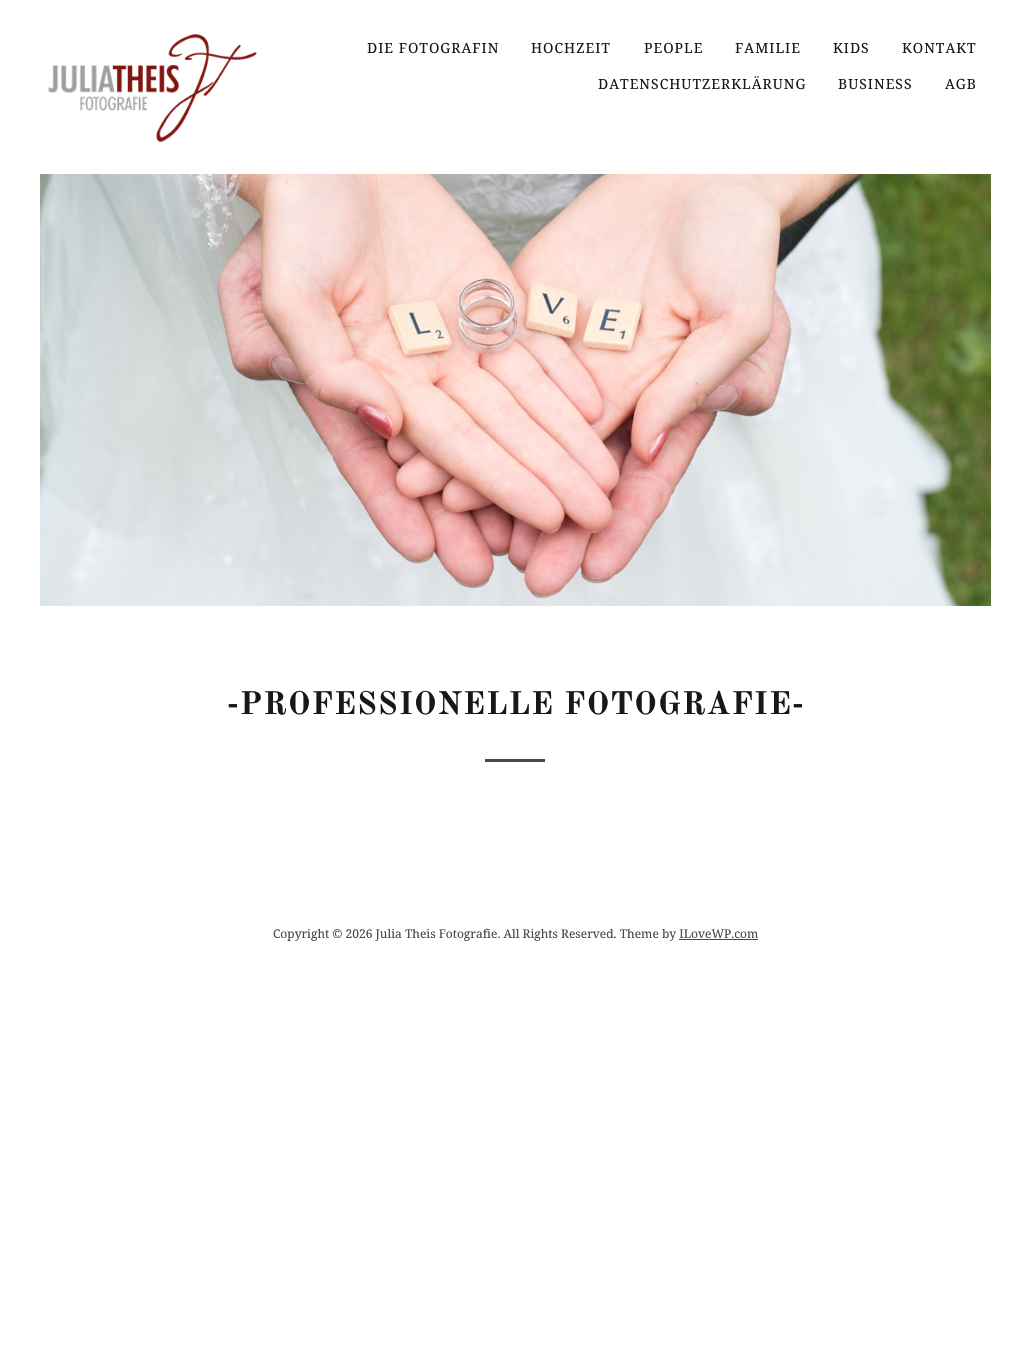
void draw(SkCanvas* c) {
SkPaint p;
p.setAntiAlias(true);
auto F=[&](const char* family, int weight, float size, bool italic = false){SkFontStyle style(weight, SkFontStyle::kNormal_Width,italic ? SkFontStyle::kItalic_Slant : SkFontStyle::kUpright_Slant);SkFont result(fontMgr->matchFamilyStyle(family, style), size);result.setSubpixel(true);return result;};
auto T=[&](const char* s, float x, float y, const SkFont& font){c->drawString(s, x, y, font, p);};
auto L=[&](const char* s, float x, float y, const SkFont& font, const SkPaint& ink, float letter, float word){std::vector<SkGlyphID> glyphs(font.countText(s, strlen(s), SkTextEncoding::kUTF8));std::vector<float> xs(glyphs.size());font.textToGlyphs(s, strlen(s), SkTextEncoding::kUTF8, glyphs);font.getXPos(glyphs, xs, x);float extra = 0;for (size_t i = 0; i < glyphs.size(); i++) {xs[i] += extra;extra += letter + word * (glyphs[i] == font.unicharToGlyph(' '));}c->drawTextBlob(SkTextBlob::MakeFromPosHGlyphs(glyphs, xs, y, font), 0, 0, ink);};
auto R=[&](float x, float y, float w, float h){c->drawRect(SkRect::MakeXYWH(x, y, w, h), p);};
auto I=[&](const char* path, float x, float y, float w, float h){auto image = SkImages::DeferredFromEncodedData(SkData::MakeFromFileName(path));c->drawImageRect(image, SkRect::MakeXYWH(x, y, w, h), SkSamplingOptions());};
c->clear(0xffffffff);
I("1.png",48,34,209,109);
auto f1 = F("Noto Serif",400,14);
p.setColor(0xff181818);
L("DIE FOTOGRAFIN",367,53,f1,p,1,0);
L("HOCHZEIT",531,53,f1,p,1,0);
L("PEOPLE",644,53,f1,p,1,0);
L("FAMILIE",735,53,f1,p,1,0);
L("KIDS",833,53,f1,p,1,0);
L("KONTAKT",902,53,f1,p,1,0);
L("DATENSCHUTZERKLÄRUNG",598,89,f1,p,1,0);
L("BUSINESS",838,89,f1,p,1,0);
L("AGB",945,89,f1,p,1,0);
I("2.png",40,174,951,432);
auto f2 = F("Old Standard TT",700,32);
L("-PROFESSIONELLE FOTOGRAFIE-",227,714,f2,p,1,0);
p.setColor(0xff484848);
R(485,759,60,3);
auto f3 = F("Noto Serif",400,12);
T("Copyright © 2026 Julia Theis Fotografie. All Rights Reserved. Theme by ILoveWP.com",273,938,f3);
R(679,939,79,1);
}
